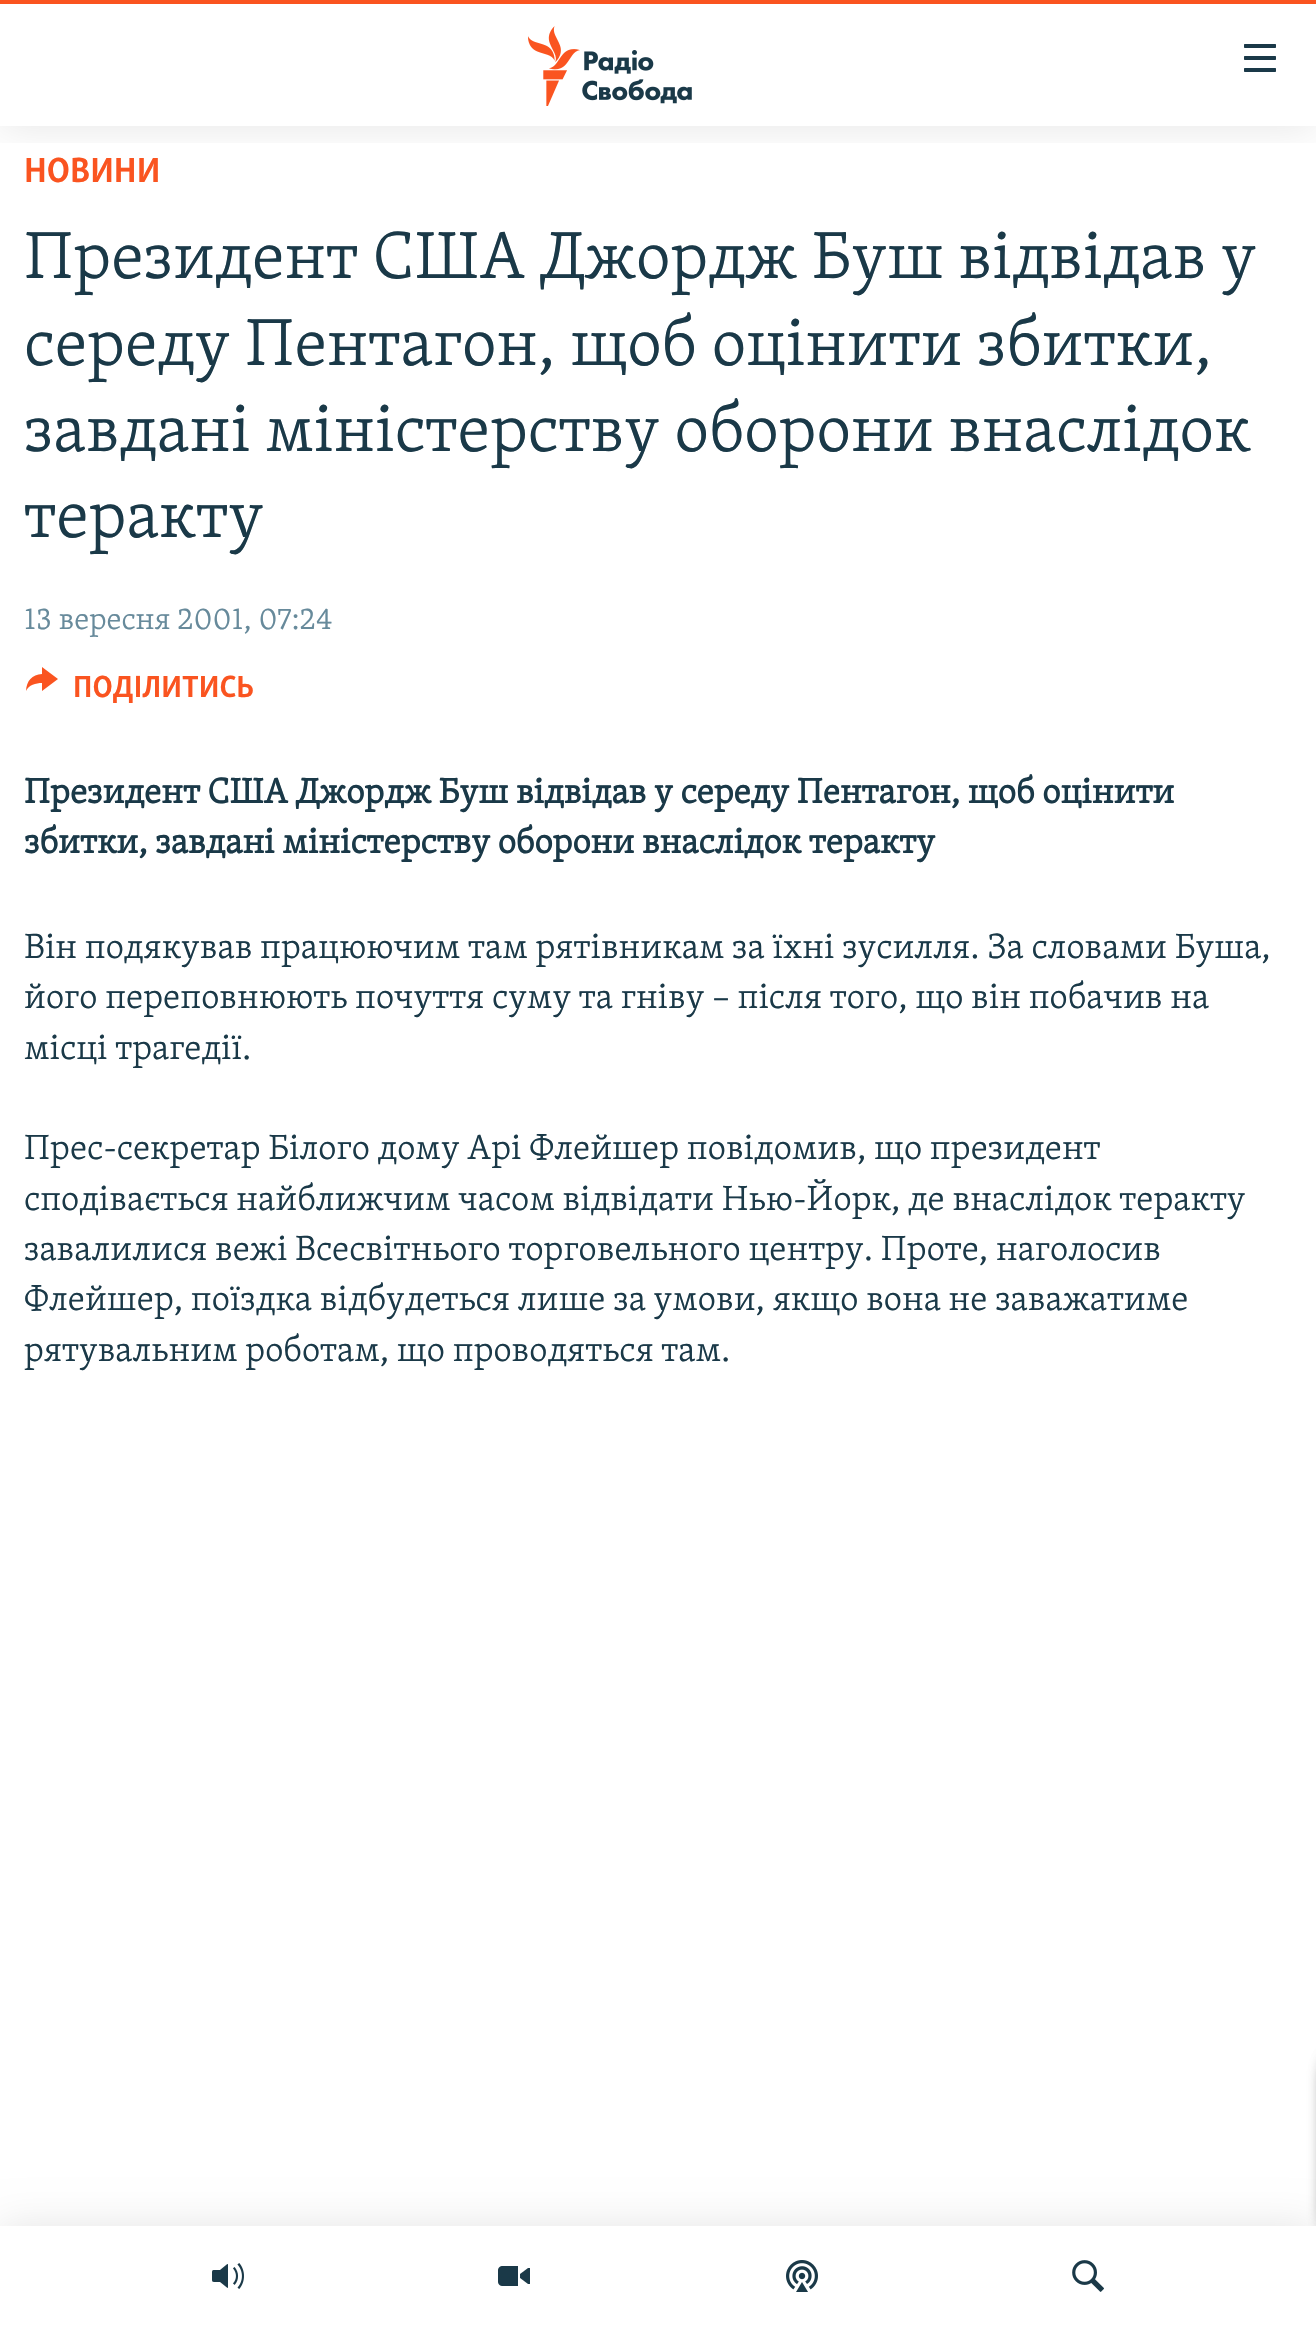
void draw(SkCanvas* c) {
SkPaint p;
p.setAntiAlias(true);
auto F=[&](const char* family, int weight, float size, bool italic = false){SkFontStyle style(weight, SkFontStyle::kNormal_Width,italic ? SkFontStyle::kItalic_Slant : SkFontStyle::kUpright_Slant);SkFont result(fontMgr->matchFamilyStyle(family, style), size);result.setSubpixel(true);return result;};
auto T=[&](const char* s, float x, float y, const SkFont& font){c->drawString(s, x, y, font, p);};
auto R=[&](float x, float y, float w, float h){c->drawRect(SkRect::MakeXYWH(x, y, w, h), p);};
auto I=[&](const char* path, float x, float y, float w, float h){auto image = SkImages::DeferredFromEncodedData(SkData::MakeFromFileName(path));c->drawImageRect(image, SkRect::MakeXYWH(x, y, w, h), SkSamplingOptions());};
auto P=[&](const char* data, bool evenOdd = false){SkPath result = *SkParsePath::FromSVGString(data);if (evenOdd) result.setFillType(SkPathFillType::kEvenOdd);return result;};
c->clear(0xffffffff);
c->save();
c->clipRect(SkRect::MakeXYWH(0,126,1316,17));
p.setColor(0x1a000000);
p.setMaskFilter(SkMaskFilter::MakeBlur(kNormal_SkBlurStyle, 20));
c->drawRect(SkRect::MakeXYWH(0,0,1316,126),p);
p.setMaskFilter(nullptr);
c->restore();
p.setColor(0xfffa5420);
R(0,0,1316,4);
I("1.png",528,26,164,80);
I("2.png",1244,44,32,28);
p.setColor(0x1a000000);
p.setMaskFilter(SkMaskFilter::MakeBlur(kNormal_SkBlurStyle, 20));
c->drawRect(SkRect::MakeXYWH(0,2226,1316,100),p);
p.setMaskFilter(nullptr);
p.setColor(0xd9000000);
p.setMaskFilter(SkMaskFilter::MakeBlur(kNormal_SkBlurStyle, 10));
c->drawRoundRect(SkRect::MakeXYWH(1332,2064,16,162),2,2,p);
p.setMaskFilter(nullptr);
p.setMaskFilter(SkMaskFilter::MakeBlur(kNormal_SkBlurStyle, 10));
c->drawRoundRect(SkRect::MakeXYWH(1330,2064,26,162),10,10,p);
p.setMaskFilter(nullptr);
p.setColor(0xffffffff);
R(0,2226,1316,100);
I("3.png",212,2263,32,26);
I("4.png",498,2266,32,20);
I("5.png",786,2260,32,32);
I("6.png",1072,2260,32,32);
auto f1 = F("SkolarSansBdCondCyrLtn",700,36);
p.setColor(0xfffa5420);
T("НОВИНИ",24,182,f1);
auto f2 = F("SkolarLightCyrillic",300,68.4);
p.setColor(0xff1a3948);
T("Президент США Джордж Буш відвідав у",24,278,f2);
T("середу Пентагон, щоб оцінити збитки,",24,365,f2);
T("завдані міністерству оборони внаслідок",24,451,f2);
T("теракту",24,537,f2);
auto f3 = F("SkolarLightCyrillic",300,31.5);
p.setColor(0xff678a9b);
T("13 вересня 2001, 07:24",24,629,f3);
p.setColor(0xfffa5420);
c->drawPath(P("M26 691c.5-10 6-16.5 16-17v-7l16 12l-16 12v-8c-6 0-13.5 2-16 8z"),p);
auto f4 = F("SkolarSansBdCondCyrLtn",700,31.5);
T("ПОДІЛИТИСЬ",73,697,f4);
auto f5 = F("SkolarLightCyrillic",700,36);
p.setColor(0xff1a3948);
T("Президент США Джордж Буш відвідав у середу Пентагон, щоб оцінити",24,803,f5);
T("збитки, завдані міністерству оборони внаслідок теракту",24,853,f5);
auto f6 = F("SkolarLightCyrillic",300,36);
T("Він подякував працюючим там рятівникам за їхні зусилля. За словами Буша,",24,958,f6);
T("його переповнюють почуття суму та гніву – після того, що він побачив на",24,1008,f6);
T("місці трагедії.",24,1059,f6);
T("Прес-секретар Білого дому Арі Флейшер повідомив, що президент",24,1159,f6);
T("сподівається найближчим часом відвідати Нью-Йорк, де внаслідок теракту",24,1210,f6);
T("завалилися вежі Всесвітнього торговельного центру. Проте, наголосив",24,1260,f6);
T("Флейшер, поїздка відбудеться лише за умови, якщо вона не заважатиме",24,1310,f6);
T("рятувальним роботам, що проводяться там.",24,1361,f6);
}
